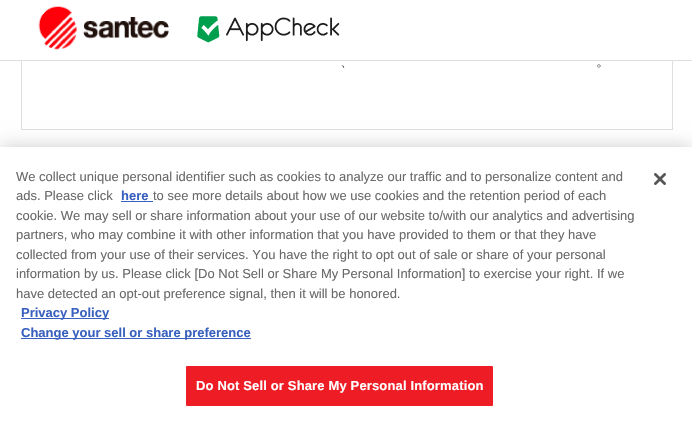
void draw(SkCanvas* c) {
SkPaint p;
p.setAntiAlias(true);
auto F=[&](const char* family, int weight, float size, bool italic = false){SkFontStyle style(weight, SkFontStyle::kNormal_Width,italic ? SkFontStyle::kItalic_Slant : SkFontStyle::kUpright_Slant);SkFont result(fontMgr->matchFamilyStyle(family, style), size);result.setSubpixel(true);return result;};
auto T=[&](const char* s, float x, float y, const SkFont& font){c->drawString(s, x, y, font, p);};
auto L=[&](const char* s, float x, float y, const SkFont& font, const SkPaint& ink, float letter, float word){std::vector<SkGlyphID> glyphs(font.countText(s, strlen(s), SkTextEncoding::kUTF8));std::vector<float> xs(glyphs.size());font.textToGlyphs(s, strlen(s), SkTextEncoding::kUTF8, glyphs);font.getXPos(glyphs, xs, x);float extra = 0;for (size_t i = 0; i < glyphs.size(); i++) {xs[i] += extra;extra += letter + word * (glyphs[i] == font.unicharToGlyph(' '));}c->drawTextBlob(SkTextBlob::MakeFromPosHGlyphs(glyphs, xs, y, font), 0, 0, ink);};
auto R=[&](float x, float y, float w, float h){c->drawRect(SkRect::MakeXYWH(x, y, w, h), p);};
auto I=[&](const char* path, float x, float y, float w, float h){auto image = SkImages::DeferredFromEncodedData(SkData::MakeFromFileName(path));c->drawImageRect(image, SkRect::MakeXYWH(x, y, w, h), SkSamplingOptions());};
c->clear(0xffffffff);
p.setColor(0xffdfdfdf);
R(0,60,692,1);
I("1.png",38,6,131,44);
I("2.png",197,16,143,27);
p.setColor(0xffdedede);
R(672,61,1,69);
R(21,61,1,69);
R(22,129,650,1);
auto f1 = F("WenQuanYi Zen Hei",500,14);
p.setColor(0xff4d4d4d);
T("、",340,66,f1);
T("。",596,66,f1);
p.setColor(0x33000000);
p.setMaskFilter(SkMaskFilter::MakeBlur(kNormal_SkBlurStyle, 9));
c->drawRect(SkRect::MakeXYWH(0,147,692,276),p);
p.setMaskFilter(nullptr);
p.setColor(0xffffffff);
R(0,147,692,276);
auto f2 = F("Liberation Sans",400,13);
p.setColor(0xff696969);
T("We collect unique personal identifier such as cookies to analyze our traffic and to personalize content and",16,181,f2);
T("ads. Please click",16,200,f2);
auto f3 = F("Liberation Sans",700,13);
p.setColor(0xff3860be);
T("here",121,200,f3);
R(121,201,32,1);
p.setColor(0xff696969);
T("to see more details about how we use cookies and the retention period of each",153,200,f2);
T("cookie. We may sell or share information about your use of our website to/with our analytics and advertising",16,220,f2);
T("partners, who may combine it with other information that you have provided to them or that they have",16,239,f2);
T("collected from your use of their services. You have the right to opt out of sale or share of your personal",16,259,f2);
T("information by us. Please click [Do Not Sell or Share My Personal Information] to exercise your right. If we",16,278,f2);
T("have detected an opt-out preference signal, then it will be honored.",16,298,f2);
p.setColor(0xff3860be);
R(21,318,88,1);
T("Privacy Policy",21,317,f3);
R(21,338,230,1);
T("Change your sell or share preference",21,337,f3);
p.setColor(0xffed1c25);
c->drawRoundRect(SkRect::MakeXYWH(185.5,365.5,308,41),1.5,1.5,p);
p.setStroke(true);
p.setStrokeWidth(1);
p.setColor(0xffffffff);
c->drawRoundRect(SkRect::MakeXYWH(185.5,365.5,308,41),1.5,1.5,p);
p.setStroke(false);
L("Do Not Sell or Share My Personal Information",196,390,f3,p,.15,0);
I("3.png",654,173,12,12);
}
